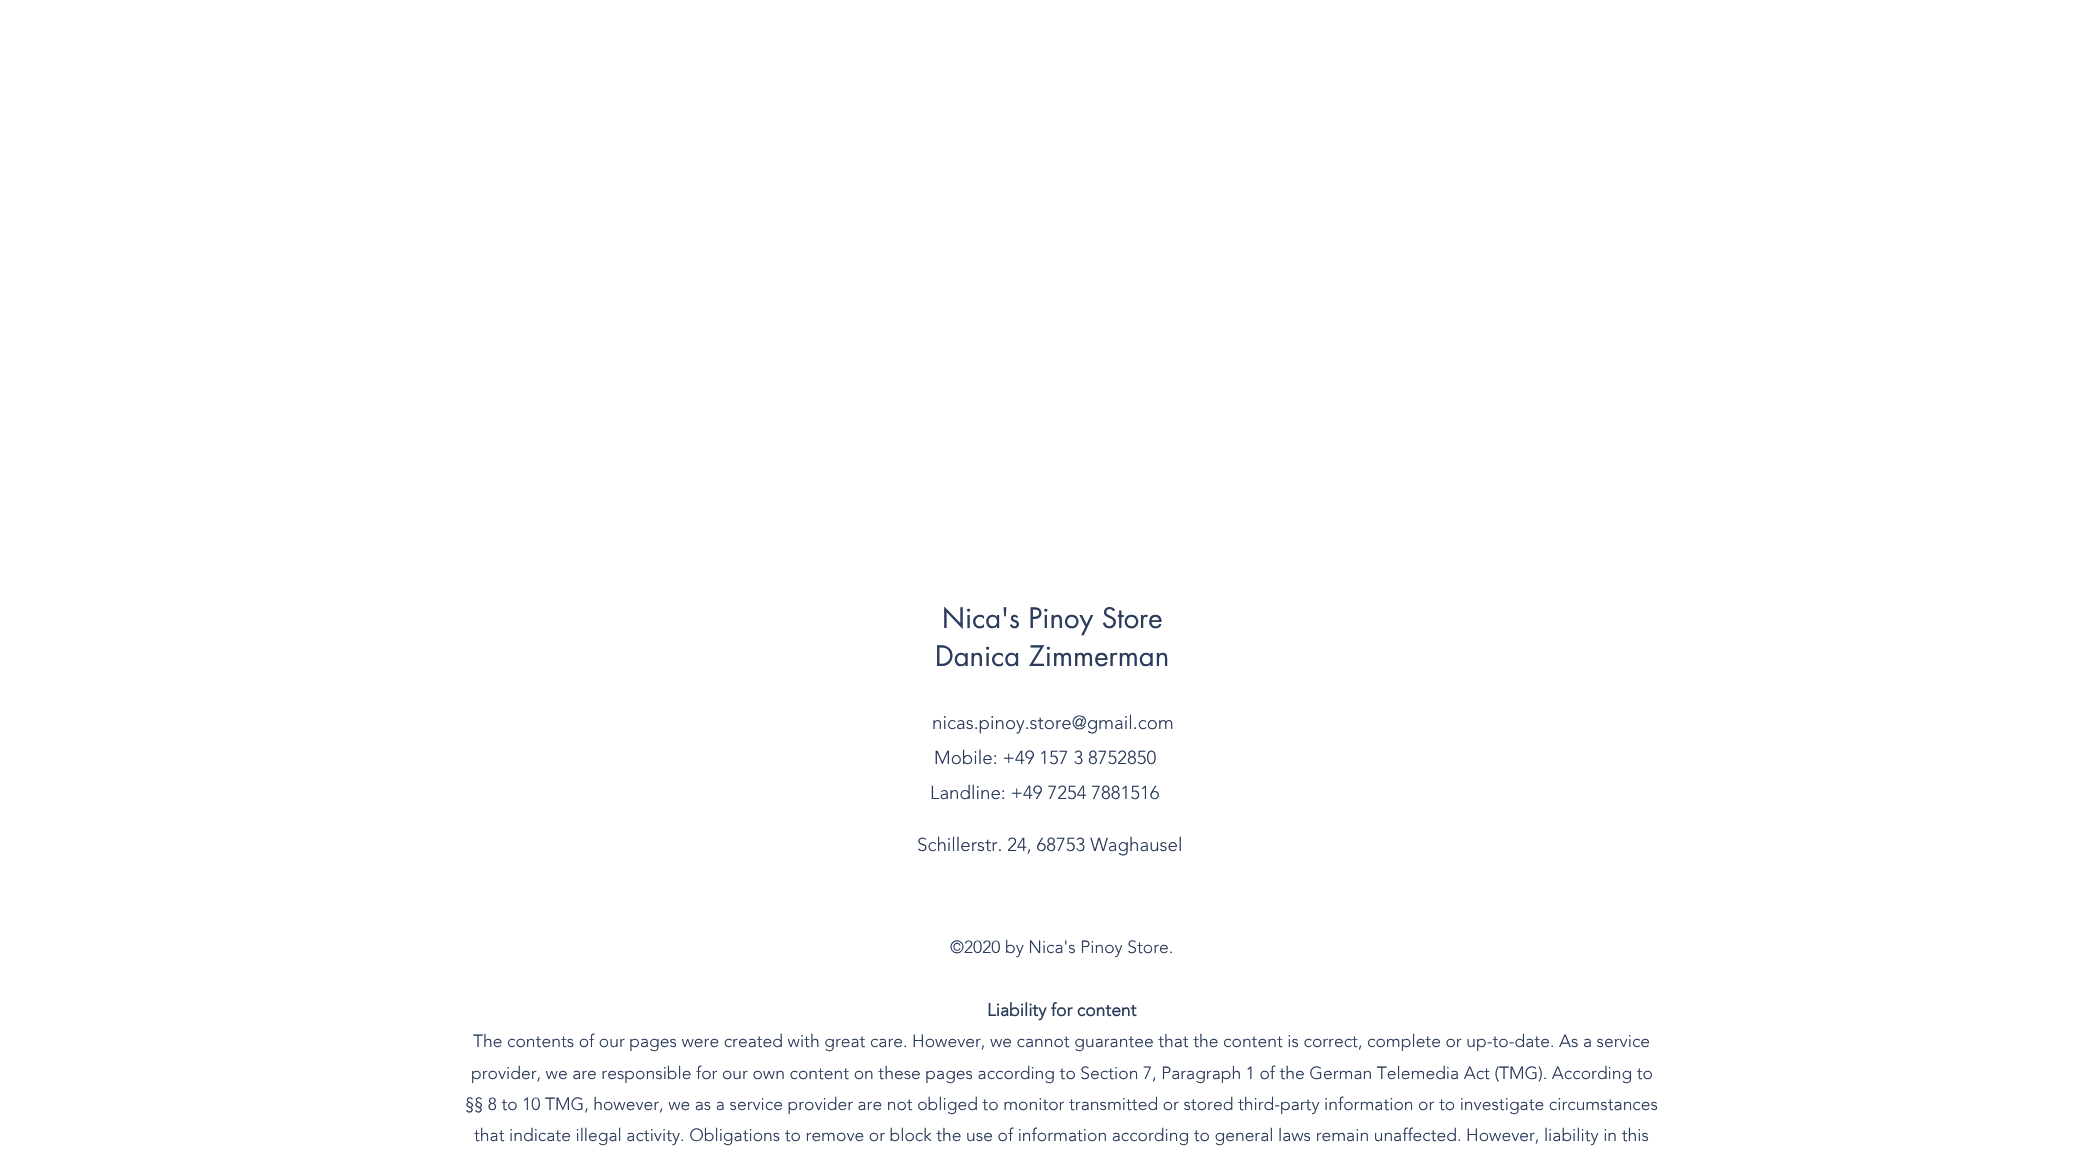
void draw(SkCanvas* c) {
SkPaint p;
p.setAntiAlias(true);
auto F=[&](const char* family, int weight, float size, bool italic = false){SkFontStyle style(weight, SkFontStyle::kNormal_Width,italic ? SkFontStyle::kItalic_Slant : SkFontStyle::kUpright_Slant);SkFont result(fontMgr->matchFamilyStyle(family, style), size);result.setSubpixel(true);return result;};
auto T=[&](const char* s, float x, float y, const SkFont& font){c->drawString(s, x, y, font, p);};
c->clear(0xffffffff);
auto f1 = F("futura",400,27.5);
p.setColor(0xff2c3c5c);
T("Nica's Pinoy Store",942,628,f1);
T("Danica Zimmerman",935,666,f1);
auto f2 = F("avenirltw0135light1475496",300,18.75);
T("nicas.pinoy.store@gmail.com",932,729,f2);
T("Mobile: +49 157 3 8752850",934,764,f2);
T("Landline: +49 7254 7881516",930,799,f2);
T("Schillerstr. 24, 68753 Waghausel",917,851,f2);
auto f3 = F("avenirltw0135light1475496",300,17.5);
T("©2020 by Nica's Pinoy Store.",950,953,f3);
auto f4 = F("avenirltw0135light1475496",700,17.5);
T("Liability for content",987,1016,f4);
T("The contents of our pages were created with great care. However, we cannot guarantee that the content is correct, complete or up-to-date. As a service",473,1047,f3);
T("provider, we are responsible for our own content on these pages according to Section 7, Paragraph 1 of the German Telemedia Act (TMG). According to",471,1079,f3);
T("§§ 8 to 10 TMG, however, we as a service provider are not obliged to monitor transmitted or stored third-party information or to investigate circumstances",465,1110,f3);
T("that indicate illegal activity. Obligations to remove or block the use of information according to general laws remain unaffected. However, liability in this",474,1141,f3);
}
